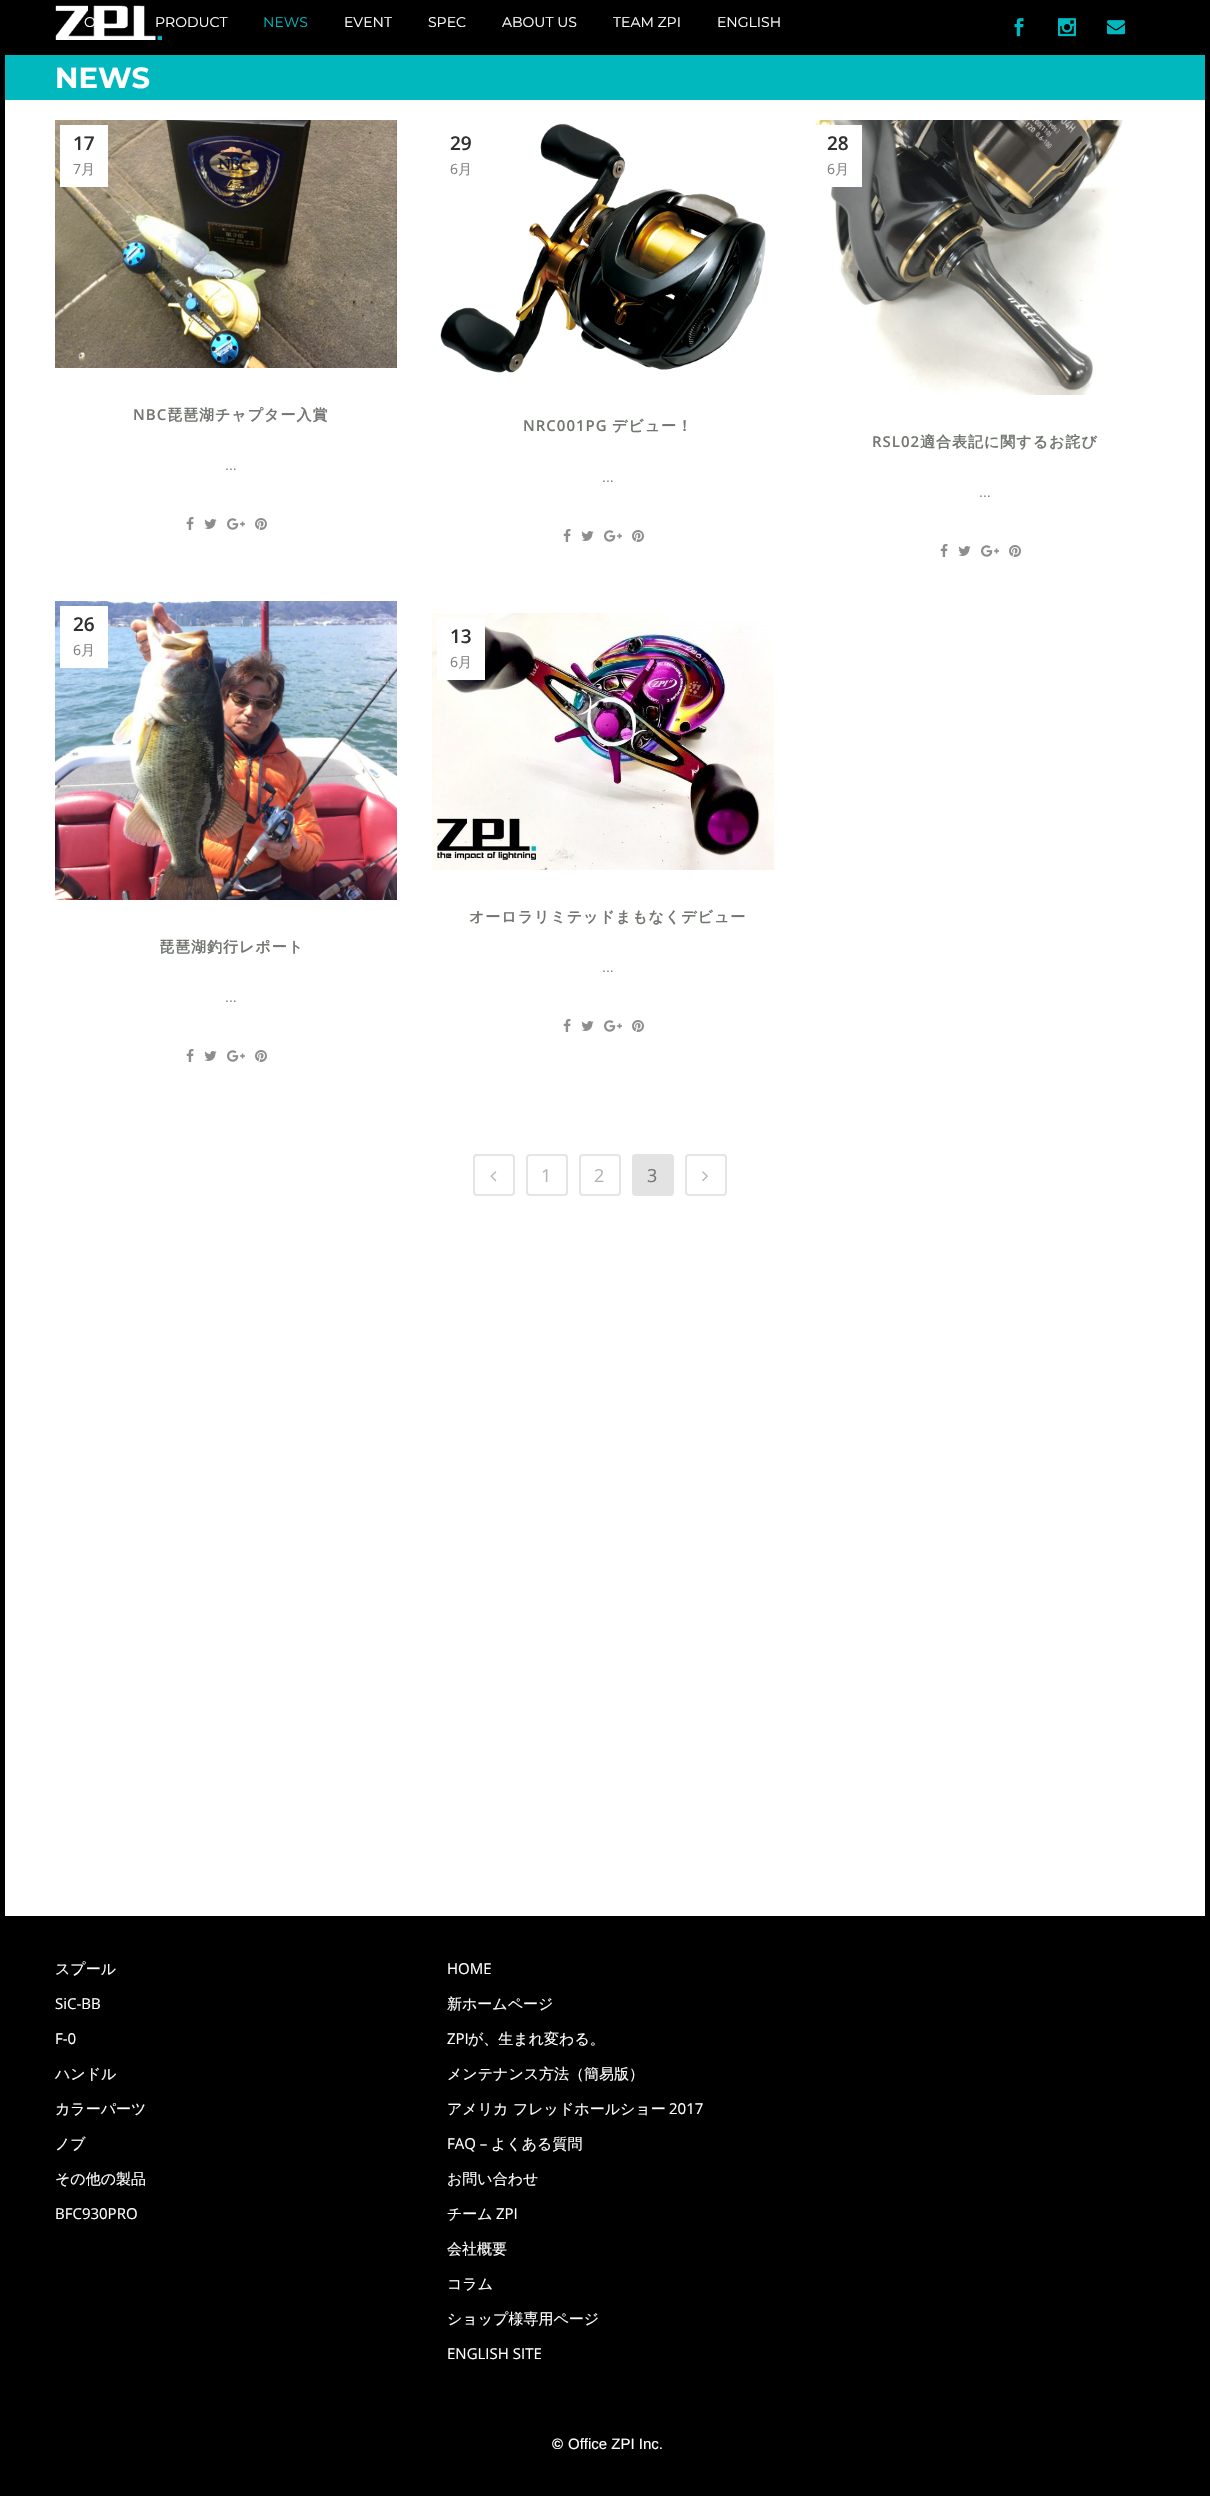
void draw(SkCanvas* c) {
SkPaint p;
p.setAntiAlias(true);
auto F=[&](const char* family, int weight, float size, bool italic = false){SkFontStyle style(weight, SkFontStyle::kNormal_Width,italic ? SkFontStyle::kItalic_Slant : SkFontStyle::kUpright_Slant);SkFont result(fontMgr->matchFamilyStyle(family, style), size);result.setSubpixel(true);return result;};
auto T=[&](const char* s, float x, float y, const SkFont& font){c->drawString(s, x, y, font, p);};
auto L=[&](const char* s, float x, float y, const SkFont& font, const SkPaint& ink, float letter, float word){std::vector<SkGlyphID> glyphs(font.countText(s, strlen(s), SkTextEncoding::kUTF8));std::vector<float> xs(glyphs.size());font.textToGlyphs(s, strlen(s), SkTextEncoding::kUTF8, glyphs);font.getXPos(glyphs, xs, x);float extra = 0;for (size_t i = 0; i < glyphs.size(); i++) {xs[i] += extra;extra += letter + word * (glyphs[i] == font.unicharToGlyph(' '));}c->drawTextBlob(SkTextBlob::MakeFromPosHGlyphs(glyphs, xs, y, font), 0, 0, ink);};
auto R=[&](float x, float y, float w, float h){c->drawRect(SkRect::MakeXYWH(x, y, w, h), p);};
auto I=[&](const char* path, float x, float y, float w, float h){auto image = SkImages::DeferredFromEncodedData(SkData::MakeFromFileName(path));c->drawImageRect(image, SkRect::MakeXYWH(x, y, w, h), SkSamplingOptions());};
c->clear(0xff000000);
p.setColor(0xffffffff);
R(5,100,1200,1816);
I("1.png",55,5,107,35);
auto f1 = F("Montserrat",400,14);
T("O",84,27,f1);
T("PRODUCT",155,27,f1);
p.setColor(0xff00b8be);
T("NEWS",263,27,f1);
p.setColor(0xffffffff);
T("EVENT",344,27,f1);
T("SPEC",428,27,f1);
T("ABOUT US",502,27,f1);
T("TEAM ZPI",613,27,f1);
T("ENGLISH",717,27,f1);
I("2.png",1014,18,10,19);
I("3.png",1058,18,18,19);
I("4.png",1107,20,18,15);
p.setColor(0xff00b8be);
R(5,55,1200,45);
auto f2 = F("Montserrat",700,29);
p.setColor(0xffffffff);
T("NEWS",55,88,f2);
I("5.png",55,120,342,248);
R(60,125,48,62);
auto f3 = F("Open Sans",600,19);
p.setColor(0xff303030);
T("17",73,150,f3);
auto f4 = F("Open Sans",400,14);
p.setColor(0xff818181);
T("7",73,174,f4);
auto f5 = F("WenQuanYi Zen Hei",500,14);
T("月",81,174,f5);
auto f6 = F("Open Sans",600,15);
p.setColor(0xff737771);
L("NBC",133,420,f6,p,1,0);
auto f7 = F("WenQuanYi Zen Hei",700,15);
L("琵琶湖チャプター入賞",167,420,f7,p,1,0);
auto f8 = F("Liberation Sans",400,14);
p.setColor(0xff818181);
T("...",225,470,f8);
I("6.png",186,517,8,13);
I("7.png",204,519,13,10);
I("8.png",227,518,18,12);
I("9.png",255,518,12,12);
I("10.png",440,123,326,250);
p.setColor(0xff303030);
T("29",450,150,f3);
p.setColor(0xff818181);
T("6",450,174,f4);
T("月",458,174,f5);
p.setColor(0xff737771);
L("NRC001PG",523,431,f6,p,1,0);
L("デビュー！",612,431,f7,p,1,0);
p.setColor(0xff818181);
T("...",602,482,f8);
I("6.png",563,529,8,13);
I("7.png",581,531,13,10);
I("8.png",604,530,18,12);
I("9.png",632,530,12,12);
I("11.png",813,120,310,275);
p.setColor(0xffffffff);
R(814,125,48,62);
p.setColor(0xff303030);
T("28",827,150,f3);
p.setColor(0xff818181);
T("6",827,174,f4);
T("月",835,174,f5);
p.setColor(0xff737771);
L("RSL02",872,447,f6,p,1,0);
L("適合表記に関するお詫び",920,447,f7,p,1,0);
p.setColor(0xff818181);
T("...",979,497,f8);
I("6.png",940,544,8,13);
I("7.png",958,546,13,10);
I("8.png",981,545,18,12);
I("9.png",1009,545,12,12);
I("12.png",55,601,342,299);
p.setColor(0xffffffff);
R(60,606,48,62);
p.setColor(0xff303030);
T("26",73,631,f3);
p.setColor(0xff818181);
T("6",73,655,f4);
T("月",81,655,f5);
p.setColor(0xff737771);
L("琵琶湖釣行レポート",159,952,f7,p,1,0);
p.setColor(0xff818181);
T("...",225,1002,f8);
I("6.png",186,1049,8,13);
I("7.png",204,1051,13,10);
I("8.png",227,1050,18,12);
I("9.png",255,1050,12,12);
I("13.png",432,613,342,257);
p.setColor(0xffffffff);
R(437,618,48,62);
p.setColor(0xff303030);
T("13",450,643,f3);
p.setColor(0xff818181);
T("6",450,667,f4);
T("月",458,667,f5);
p.setColor(0xff737771);
L("オーロラリミテッドまもなくデビュー",469,922,f7,p,1,0);
p.setColor(0xff818181);
T("...",602,972,f8);
I("6.png",563,1019,8,13);
I("7.png",581,1021,13,10);
I("8.png",604,1020,18,12);
I("9.png",632,1020,12,12);
p.setStroke(true);
p.setStrokeWidth(2);
p.setColor(0xffe5e5e5);
c->drawRoundRect(SkRect::MakeXYWH(474,1155,40,40),3,3,p);
I("14.png",490,1171,7,11);
c->drawRoundRect(SkRect::MakeXYWH(527,1155,40,40),3,3,p);
auto f9 = F("Open Sans",400,18);
p.setStroke(false);
p.setColor(0xffb4b4b4);
T("1",541,1182,f9);
p.setStroke(true);
p.setColor(0xffe5e5e5);
c->drawRoundRect(SkRect::MakeXYWH(580,1155,40,40),3,3,p);
p.setStroke(false);
p.setColor(0xffb4b4b4);
T("2",594,1182,f9);
p.setColor(0xffe3e3e3);
c->drawRoundRect(SkRect::MakeXYWH(633,1155,40,40),3,3,p);
p.setStroke(true);
c->drawRoundRect(SkRect::MakeXYWH(633,1155,40,40),3,3,p);
p.setStroke(false);
p.setColor(0xff737771);
T("3",647,1182,f9);
p.setStroke(true);
p.setColor(0xffe5e5e5);
c->drawRoundRect(SkRect::MakeXYWH(686,1155,40,40),3,3,p);
I("15.png",702,1171,6,11);
auto f10 = F("WenQuanYi Zen Hei",500,15);
p.setStroke(false);
p.setColor(0xffffffff);
T("スプール",55,1974,f10);
auto f11 = F("Open Sans",400,15);
T("SiC-BB",55,2009,f11);
T("F-0",55,2044,f11);
T("ハンドル",55,2079,f10);
T("カラーパーツ",55,2114,f10);
T("ノブ",55,2149,f10);
T("その他の製品",55,2184,f10);
T("BFC930PRO",55,2219,f11);
T("HOME",447,1974,f11);
T("新ホームページ",447,2009,f10);
T("ZPI",447,2044,f11);
T("が、生まれ変わる。",468,2044,f10);
T("メンテナンス方法（簡易版）",447,2079,f10);
T("アメリカ フレッドホールショー",447,2114,f10);
T("2017",669,2114,f11);
T("FAQ –",447,2149,f11);
T("よくある質問",491,2149,f10);
T("お問い合わせ",447,2184,f10);
T("チーム",447,2219,f10);
T("ZPI",496,2219,f11);
T("会社概要",447,2254,f10);
T("コラム",447,2289,f10);
T("ショップ様専用ページ",447,2324,f10);
T("ENGLISH SITE",447,2359,f11);
auto f12 = F("Liberation Sans",700,15);
T("©",552,2449,f12);
auto f13 = F("Liberation Sans",400,15);
T("Office ZPI Inc.",568,2449,f13);
}
